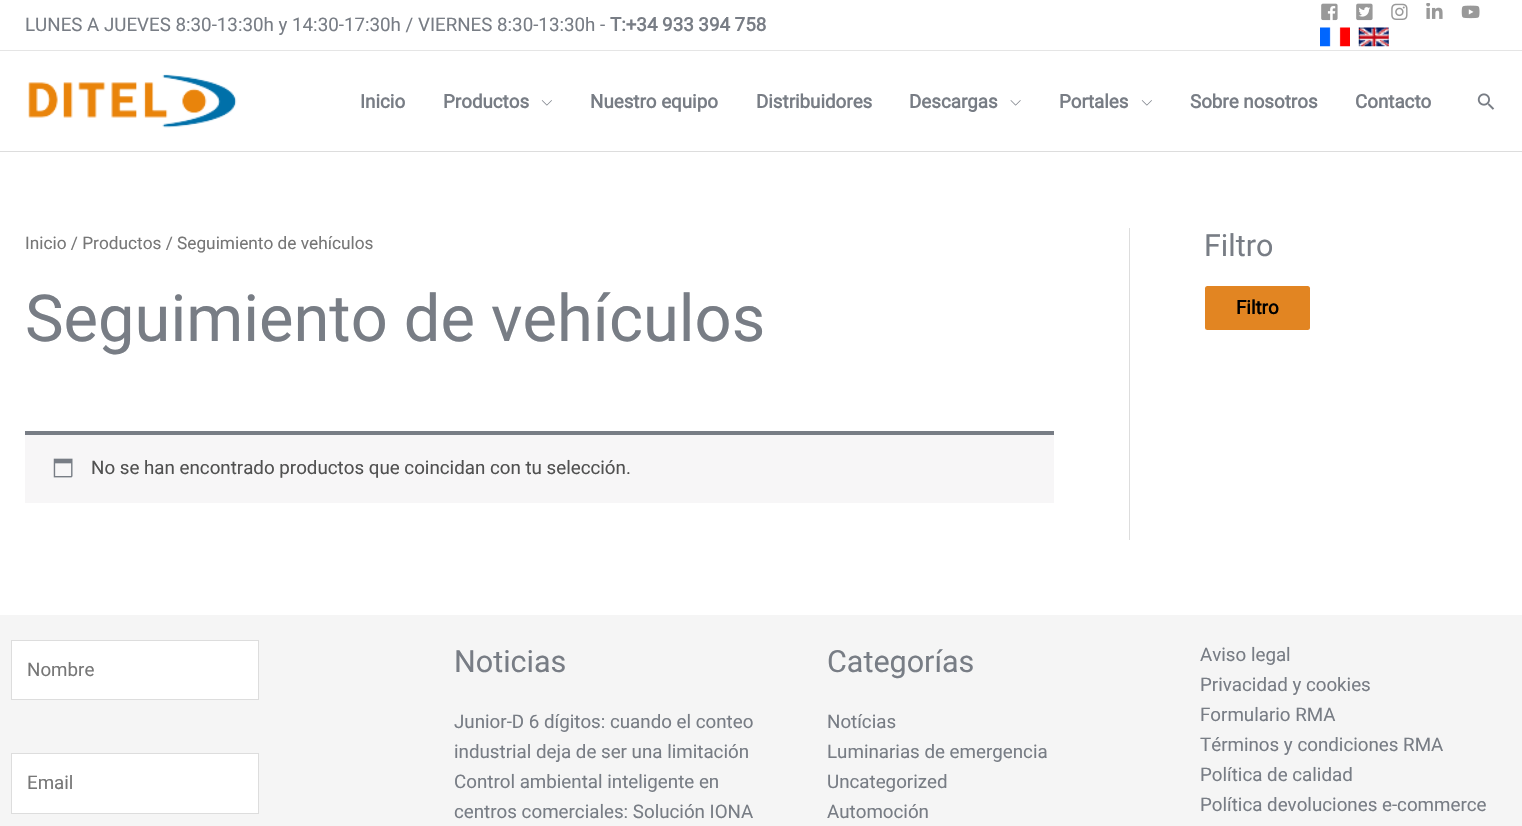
void draw(SkCanvas* c) {
SkPaint p;
p.setAntiAlias(true);
auto F=[&](const char* family, int weight, float size, bool italic = false){SkFontStyle style(weight, SkFontStyle::kNormal_Width,italic ? SkFontStyle::kItalic_Slant : SkFontStyle::kUpright_Slant);SkFont result(fontMgr->matchFamilyStyle(family, style), size);result.setSubpixel(true);return result;};
auto T=[&](const char* s, float x, float y, const SkFont& font){c->drawString(s, x, y, font, p);};
auto R=[&](float x, float y, float w, float h){c->drawRect(SkRect::MakeXYWH(x, y, w, h), p);};
auto Q=[&](float x, float y, float w, float h, float radius){c->drawRoundRect(SkRect::MakeXYWH(x, y, w, h), radius, radius, p);};
auto I=[&](const char* path, float x, float y, float w, float h){auto image = SkImages::DeferredFromEncodedData(SkData::MakeFromFileName(path));c->drawImageRect(image, SkRect::MakeXYWH(x, y, w, h), SkSamplingOptions());};
c->clear(0xffffffff);
p.setColor(0xffe5e5e5);
R(0,50,1522,1);
auto f1 = F("Roboto",400,18.75);
p.setColor(0xff787d85);
T("LUNES A JUEVES 8:30-13:30h y 14:30-17:30h / VIERNES 8:30-13:30h -",25,31,f1);
auto f2 = F("Roboto",700,18.75);
T("T:+34 933 394 758",610,31,f2);
I("1.png",1321,3,17,18);
I("2.png",1356,3,17,18);
I("3.png",1391,3,17,17);
I("4.png",1426,3,17,16);
I("5.png",1461,5,19,14);
I("6.png",1320,27,30,20);
I("7.png",1358,27,31,20);
p.setColor(0xffdddddd);
R(0,151,1522,1);
I("8.png",28,74,209,54);
p.setColor(0xff787d85);
T("Inicio",360,108,f2);
T("Productos",443,108,f2);
I("9.png",541,100,11,6);
T("Nuestro equipo",590,108,f2);
T("Distribuidores",756,108,f2);
T("Descargas",909,108,f2);
I("10.png",1010,100,11,6);
T("Portales",1059,108,f2);
I("9.png",1141,100,11,6);
T("Sobre nosotros",1190,108,f2);
T("Contacto",1355,108,f2);
I("11.png",1477,93,18,17);
p.setColor(0xffdddddd);
R(1129,228,1,312);
auto f3 = F("Roboto",400,17.25);
p.setColor(0xff777777);
T("Inicio / Productos / Seguimiento de vehículos",25,249,f3);
auto f4 = F("Roboto",400,65);
p.setColor(0xff787d85);
T("Seguimiento de vehículos",25,341,f4);
p.setColor(0xfff7f6f7);
R(25,435,1029,68);
p.setColor(0xff787d85);
R(25,431,1029,4);
I("12.png",53,458,20,20);
p.setColor(0xff515151);
T("No se han encontrado productos que coincidan con tu selección.",91,474,f1);
auto f5 = F("Roboto",400,30.5);
p.setColor(0xff787d85);
T("Filtro",1204,256,f5);
p.setColor(0xffe28522);
Q(1205,286,105,44,2.5);
p.setColor(0xff000000);
T("Filtro",1236,314,f2);
p.setColor(0xfff5f5f5);
R(0,615,1522,211);
p.setColor(0xffffffff);
c->drawRect(SkRect::MakeXYWH(11.5,640.5,247,59),p);
p.setStroke(true);
p.setStrokeWidth(1);
p.setColor(0xffdddddd);
c->drawRect(SkRect::MakeXYWH(11.5,640.5,247,59),p);
p.setStroke(false);
p.setColor(0xff777777);
T("Nombre",27,676,f1);
p.setColor(0xffffffff);
c->drawRect(SkRect::MakeXYWH(11.5,753.5,247,60),p);
p.setStroke(true);
p.setColor(0xffdddddd);
c->drawRect(SkRect::MakeXYWH(11.5,753.5,247,60),p);
p.setStroke(false);
p.setColor(0xff777777);
T("Email",27,789,f1);
p.setColor(0xff787d85);
T("Noticias",454,672,f5);
T("Junior-D 6 dígitos: cuando el conteo",454,728,f1);
T("industrial deja de ser una limitación",454,758,f1);
T("Control ambiental inteligente en",454,788,f1);
T("centros comerciales: Solución IONA",454,818,f1);
T("Categorías",827,672,f5);
T("Notícias",827,728,f1);
T("Luminarias de emergencia",827,758,f1);
T("Uncategorized",827,788,f1);
T("Automoción",827,818,f1);
T("Aviso legal",1200,661,f1);
T("Privacidad y cookies",1200,691,f1);
T("Formulario RMA",1200,721,f1);
T("Términos y condiciones RMA",1200,751,f1);
T("Política de calidad",1200,781,f1);
T("Política devoluciones e-commerce",1200,811,f1);
}
